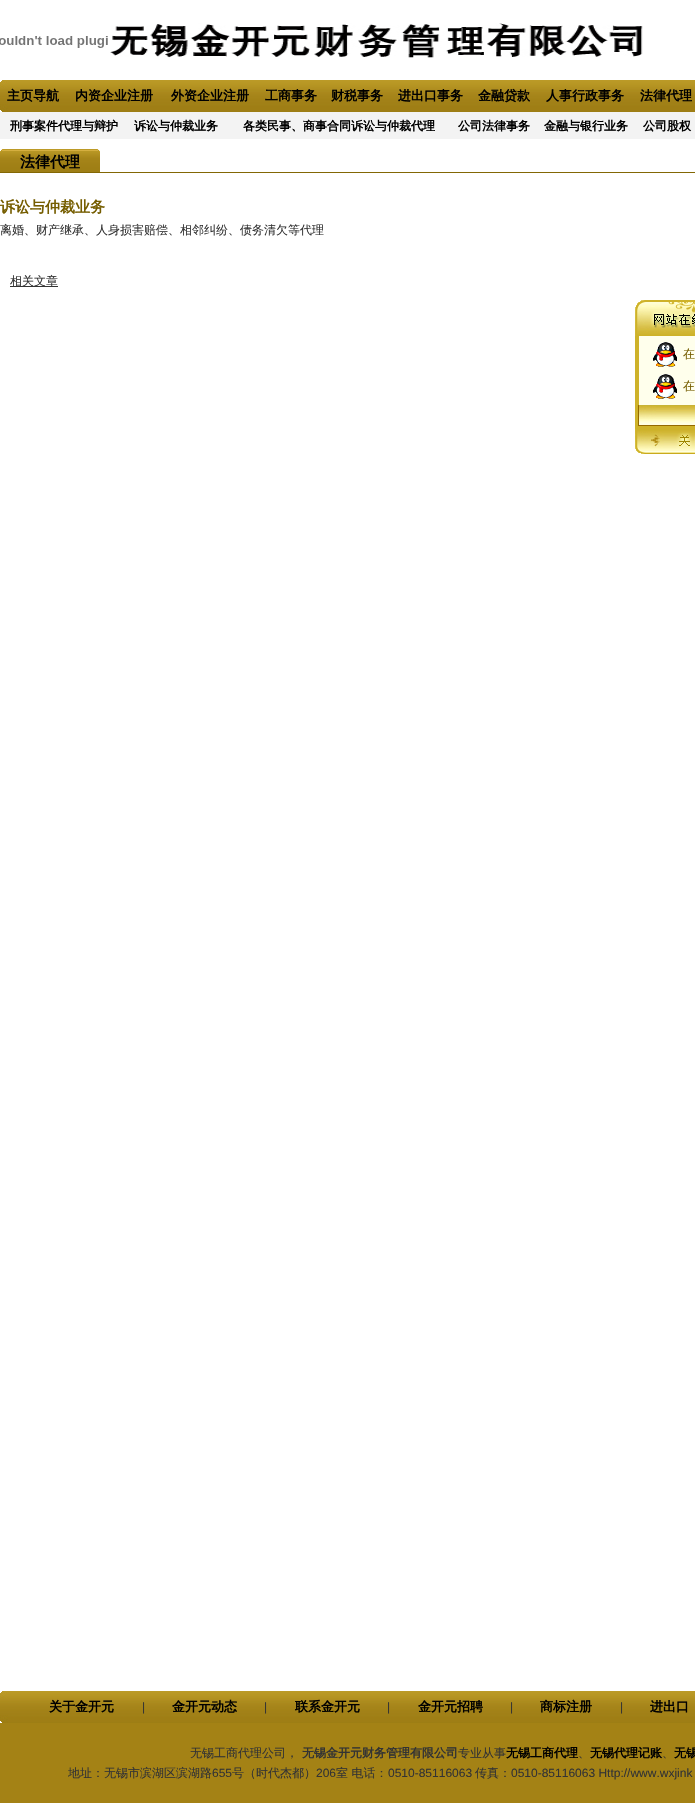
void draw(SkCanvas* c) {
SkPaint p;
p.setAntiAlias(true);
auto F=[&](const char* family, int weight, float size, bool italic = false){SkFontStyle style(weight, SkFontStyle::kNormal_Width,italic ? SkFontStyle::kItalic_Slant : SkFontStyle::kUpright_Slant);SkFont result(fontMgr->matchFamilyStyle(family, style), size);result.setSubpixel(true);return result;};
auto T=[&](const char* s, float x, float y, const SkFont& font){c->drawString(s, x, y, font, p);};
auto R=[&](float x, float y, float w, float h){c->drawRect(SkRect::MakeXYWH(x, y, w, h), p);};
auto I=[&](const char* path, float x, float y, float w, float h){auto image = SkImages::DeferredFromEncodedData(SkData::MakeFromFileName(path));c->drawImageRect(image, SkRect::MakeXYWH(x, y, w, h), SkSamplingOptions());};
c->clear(0xffffffff);
I("1.png",0,36,108,12);
I("2.png",110,23,533,35);
I("3.png",0,80,695,32);
auto f1 = F("WenQuanYi Zen Hei",700,13);
p.setColor(0xff000000);
T("主页导航",7,100,f1);
T("内资企业注册",75,100,f1);
T("外资企业注册",171,100,f1);
T("工商事务",265,100,f1);
T("财税事务",331,100,f1);
T("进出口事务",398,100,f1);
T("金融贷款",478,100,f1);
T("人事行政事务",546,100,f1);
T("法律代理",640,100,f1);
p.setColor(0xfff3f3f3);
R(0,112,695,27);
auto f2 = F("WenQuanYi Zen Hei",700,12);
p.setColor(0xff000000);
T("刑事案件代理与辩护",10,130,f2);
T("诉讼与仲裁业务",134,130,f2);
T("各类民事、商事合同诉讼与仲裁代理",243,130,f2);
T("公司法律事务",458,130,f2);
T("金融与银行业务",544,130,f2);
T("公司股权",643,130,f2);
I("4.png",0,149,100,23);
auto f3 = F("WenQuanYi Zen Hei",700,15);
T("法律代理",20,167,f3);
p.setColor(0xff836704);
R(0,172,695,1);
p.setColor(0xff755d00);
T("诉讼与仲裁业务",0,212,f3);
auto f4 = F("WenQuanYi Zen Hei",500,12);
p.setColor(0xff333333);
T("离婚、财产继承、人身损害赔偿、相邻纠纷、债务清欠等代理",0,234,f4);
R(10,286,48,1);
T("相关文章",10,285,f4);
I("3.png",0,1691,695,32);
p.setColor(0xff000000);
T("关于金开元",49,1711,f1);
auto f5 = F("Liberation Sans",400,12);
p.setColor(0xff333333);
T("|",142,1711,f5);
p.setColor(0xff000000);
T("金开元动态",172,1711,f1);
p.setColor(0xff333333);
T("|",264,1711,f5);
p.setColor(0xff000000);
T("联系金开元",295,1711,f1);
p.setColor(0xff333333);
T("|",387,1711,f5);
p.setColor(0xff000000);
T("金开元招聘",418,1711,f1);
p.setColor(0xff333333);
T("|",510,1711,f5);
p.setColor(0xff000000);
T("商标注册",540,1711,f1);
p.setColor(0xff333333);
T("|",620,1711,f5);
p.setColor(0xff000000);
T("进出口",650,1711,f1);
p.setColor(0xffa48215);
R(0,1723,695,80);
p.setColor(0xff333333);
T("无锡工商代理公司，",190,1757,f4);
T("无锡金开元财务管理有限公司",302,1757,f2);
T("专业从事",458,1757,f4);
p.setColor(0xff000000);
T("无锡工商代理",506,1757,f2);
p.setColor(0xff333333);
T("、",578,1757,f4);
p.setColor(0xff000000);
T("无锡代理记账",590,1757,f2);
p.setColor(0xff333333);
T("、",662,1757,f4);
p.setColor(0xff000000);
T("无锡",674,1757,f2);
p.setColor(0xff333333);
T("地址：无锡市滨湖区滨湖路",68,1777,f4);
T("655",212,1777,f5);
T("号（时代杰都）",232,1777,f4);
T("206",316,1777,f5);
T("室 电话：",336,1777,f4);
T("0510-85116063",388,1777,f5);
T("传真：",475,1777,f4);
T("0510-85116063 Http://www.wxjink",511,1777,f5);
I("5.png",635,300,60,36);
I("6.png",635,336,60,69);
I("7.png",653,342,24,25);
p.setColor(0xff755d00);
T("在",683,358,f4);
I("7.png",653,374,24,25);
T("在",683,390,f4);
I("8.png",635,405,60,24);
I("9.png",635,429,60,25);
}
